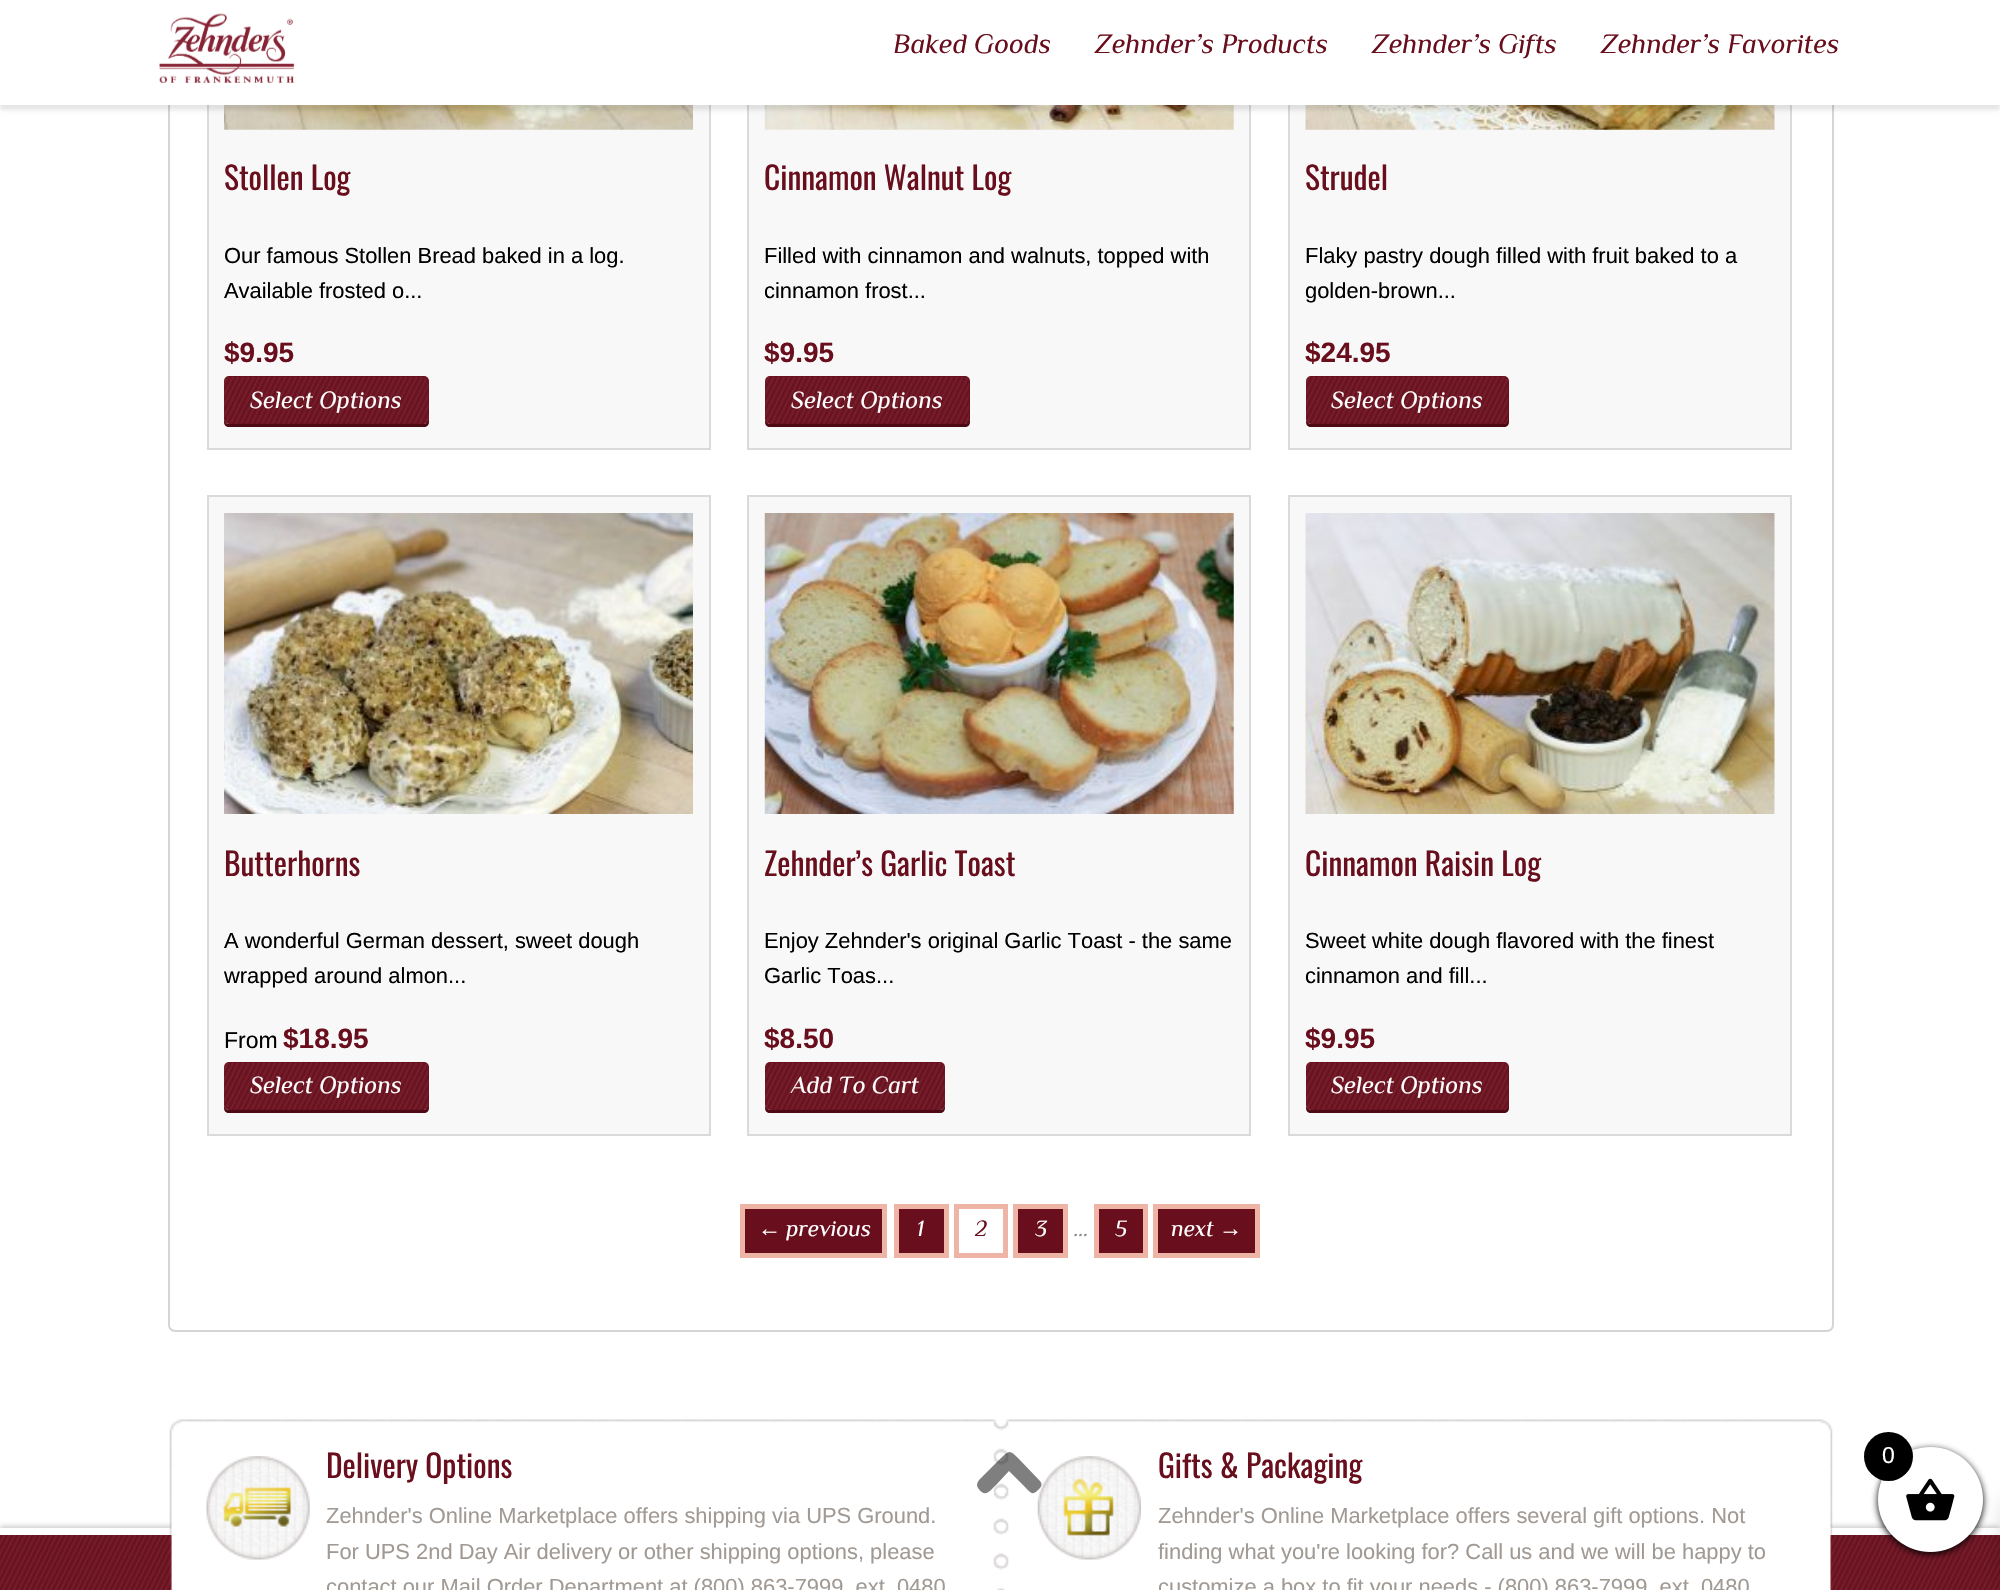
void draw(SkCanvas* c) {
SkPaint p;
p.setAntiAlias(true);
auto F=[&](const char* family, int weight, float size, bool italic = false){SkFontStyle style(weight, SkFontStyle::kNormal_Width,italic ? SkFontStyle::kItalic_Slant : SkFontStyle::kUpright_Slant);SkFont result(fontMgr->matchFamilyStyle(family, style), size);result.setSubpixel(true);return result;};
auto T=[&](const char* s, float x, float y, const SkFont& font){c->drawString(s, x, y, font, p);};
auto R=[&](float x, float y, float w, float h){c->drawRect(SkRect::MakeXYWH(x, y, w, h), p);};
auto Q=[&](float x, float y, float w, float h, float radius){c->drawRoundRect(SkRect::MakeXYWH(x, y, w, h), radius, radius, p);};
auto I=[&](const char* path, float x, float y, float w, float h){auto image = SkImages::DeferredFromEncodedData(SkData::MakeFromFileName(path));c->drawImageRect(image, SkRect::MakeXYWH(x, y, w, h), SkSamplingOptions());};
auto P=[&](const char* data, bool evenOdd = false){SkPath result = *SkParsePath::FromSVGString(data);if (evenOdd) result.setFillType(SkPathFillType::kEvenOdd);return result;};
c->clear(0xffffffff);
p.setStroke(true);
p.setStrokeWidth(2);
p.setColor(0xffd7d4d4);
c->drawRoundRect(SkRect::MakeXYWH(169,-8,1664,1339),6,6,p);
p.setStroke(false);
p.setColor(0xfff8f8f8);
R(209,105,500,343);
p.setStroke(true);
p.setColor(0xffdcd9d9);
c->drawRect(SkRect::MakeXYWH(208,-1,502,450),p);
I("2.png",224,105,469,25);
p.setStroke(false);
p.setColor(0xfff8f8f8);
R(749,105,500,343);
p.setStroke(true);
p.setColor(0xffdcd9d9);
c->drawRect(SkRect::MakeXYWH(748,-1,502,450),p);
I("4.png",764,105,470,25);
p.setStroke(false);
p.setColor(0xfff8f8f8);
R(1290,105,500,343);
p.setStroke(true);
p.setColor(0xffdcd9d9);
c->drawRect(SkRect::MakeXYWH(1289,-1,502,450),p);
I("6.png",1305,105,470,25);
p.setStroke(false);
p.setColor(0x1a000000);
p.setMaskFilter(SkMaskFilter::MakeBlur(kNormal_SkBlurStyle, 2));
c->drawRect(SkRect::MakeXYWH(0,5,2000,105),p);
p.setMaskFilter(nullptr);
p.setColor(0xffffffff);
R(0,0,2000,105);
I("1.png",159,13,136,71);
auto f1 = F("Philosopher",400,28,true);
p.setColor(0xff690e1c);
T("Baked Goods",893,53,f1);
T("Zehnder’s Products",1095,53,f1);
T("Zehnder’s Gifts",1372,53,f1);
T("Zehnder’s Favorites",1601,53,f1);
auto f2 = F("Oswald",400,31.5);
T("Stollen Log",224,190,f2);
auto f3 = F("Liberation Sans",400,21.9);
p.setColor(0xff000000);
T("Our famous Stollen Bread baked in a log.",224,263,f3);
T("Available frosted o...",224,298,f3);
auto f4 = F("Liberation Sans",700,28);
p.setColor(0xff690e1c);
T("$9.95",224,362,f4);
p.setColor(0xff4d0914);
c->drawPath(P("M224 418v4c0 3 2 5 5 5h195c3 0 5-2 5-5v-39v35c0 3-3 6-5 6h-195c-3 0-5-3-5-6z"),p);
p.setColor(0xff690e1c);
Q(224,376,205,48,5);
I("3.png",224,376,205,48);
auto f5 = F("Philosopher",400,24.5,true);
p.setColor(0xffffffff);
T("Select Options",250,408,f5);
p.setColor(0xff690e1c);
T("Cinnamon Walnut Log",764,190,f2);
p.setColor(0xff000000);
T("Filled with cinnamon and walnuts, topped with",764,263,f3);
T("cinnamon frost...",764,298,f3);
p.setColor(0xff690e1c);
T("$9.95",764,362,f4);
p.setColor(0xff4d0914);
c->drawPath(P("M765 420v2c0 3 2 5 5 5h195c3 0 5-2 5-5v-37v-2v35c0 3-3 6-6 6h-194c-2 0-4-2-5-4z"),p);
p.setColor(0xff690e1c);
Q(765,376,205,48,5);
I("5.png",765,376,204,48);
p.setColor(0xffffffff);
T("Select Options",791,408,f5);
p.setColor(0xff690e1c);
T("Strudel",1305,190,f2);
p.setColor(0xff000000);
T("Flaky pastry dough filled with fruit baked to a",1305,263,f3);
T("golden-brown...",1305,298,f3);
p.setColor(0xff690e1c);
T("$24.95",1305,362,f4);
p.setColor(0xff4d0914);
c->drawPath(P("M1306 420v2c0 3 2 5 5 5h193c3 0 5-2 5-5v-37l-1-2v35c0 3-2 6-5 6h-192c-2 0-4-2-5-4z"),p);
p.setColor(0xff690e1c);
Q(1306,376,203,48,5);
I("7.png",1306,376,202,48);
p.setColor(0xffffffff);
T("Select Options",1331,408,f5);
p.setColor(0xfff8f8f8);
c->drawRect(SkRect::MakeXYWH(208,496,502,639),p);
p.setStroke(true);
p.setColor(0xffdcd9d9);
c->drawRect(SkRect::MakeXYWH(208,496,502,639),p);
I("8.png",224,513,469,301);
p.setStroke(false);
p.setColor(0xff690e1c);
T("Butterhorns",224,876,f2);
p.setColor(0xff000000);
T("A wonderful German dessert, sweet dough",224,948,f3);
T("wrapped around almon...",224,983,f3);
auto f6 = F("Liberation Sans",400,23);
T("From",224,1048,f6);
p.setColor(0xff690e1c);
T("$18.95",283,1048,f4);
p.setColor(0xff4d0914);
c->drawPath(P("M224 1104v4c0 3 2 5 5 5h195c3 0 5-2 5-5v-39v35c0 3-3 6-5 6h-195c-3 0-5-3-5-6z"),p);
p.setColor(0xff690e1c);
Q(224,1062,205,48,5);
I("3.png",224,1062,205,48);
p.setColor(0xffffffff);
T("Select Options",250,1093,f5);
p.setColor(0xfff8f8f8);
c->drawRect(SkRect::MakeXYWH(748,496,502,639),p);
p.setStroke(true);
p.setColor(0xffdcd9d9);
c->drawRect(SkRect::MakeXYWH(748,496,502,639),p);
I("9.png",764,513,470,301);
p.setStroke(false);
p.setColor(0xff690e1c);
T("Zehnder’s Garlic Toast",764,876,f2);
p.setColor(0xff000000);
T("Enjoy Zehnder's original Garlic Toast - the same",764,948,f3);
T("Garlic Toas...",764,983,f3);
p.setColor(0xff690e1c);
T("$8.50",764,1048,f4);
p.setColor(0xff4d0914);
c->drawPath(P("M765 1106v2c0 3 2 5 5 5h170c3 0 5-2 5-5v-4c0 3-2 6-5 6h-170c-2 0-4-2-5-4z"),p);
p.setColor(0xff690e1c);
Q(765,1062,180,48,5);
I("10.png",765,1062,180,48);
p.setColor(0xffffffff);
T("Add To Cart",791,1093,f5);
p.setColor(0xfff8f8f8);
c->drawRect(SkRect::MakeXYWH(1289,496,502,639),p);
p.setStroke(true);
p.setColor(0xffdcd9d9);
c->drawRect(SkRect::MakeXYWH(1289,496,502,639),p);
I("11.png",1305,513,470,301);
p.setStroke(false);
p.setColor(0xff690e1c);
T("Cinnamon Raisin Log",1305,876,f2);
p.setColor(0xff000000);
T("Sweet white dough flavored with the finest",1305,948,f3);
T("cinnamon and fill...",1305,983,f3);
p.setColor(0xff690e1c);
T("$9.95",1305,1048,f4);
p.setColor(0xff4d0914);
c->drawPath(P("M1306 1106v2c0 3 2 5 5 5h193c3 0 5-2 5-5v-37l-1-2v35c0 3-2 6-5 6h-192c-2 0-4-2-5-4z"),p);
p.setColor(0xff690e1c);
Q(1306,1062,203,48,5);
I("7.png",1306,1062,202,48);
p.setColor(0xffffffff);
T("Select Options",1331,1093,f5);
p.setColor(0xff690e1c);
c->drawRect(SkRect::MakeXYWH(742.5,1206.5,142,49),p);
p.setStroke(true);
p.setStrokeWidth(5);
p.setColor(0xffeeb4a6);
c->drawRect(SkRect::MakeXYWH(742.5,1206.5,142,49),p);
auto f7 = F("Liberation Serif",400,23,true);
p.setStroke(false);
p.setColor(0xffffffff);
T("←",758,1236,f7);
auto f8 = F("Philosopher",400,23,true);
T("previous",786,1236,f8);
p.setColor(0xff690e1c);
c->drawRect(SkRect::MakeXYWH(896.5,1206.5,50,49),p);
p.setStroke(true);
p.setColor(0xffeeb4a6);
c->drawRect(SkRect::MakeXYWH(896.5,1206.5,50,49),p);
p.setStroke(false);
p.setColor(0xffffffff);
T("1",917,1236,f8);
p.setStroke(true);
p.setColor(0xffeeb4a6);
c->drawRect(SkRect::MakeXYWH(956.5,1206.5,49,49),p);
p.setStroke(false);
p.setColor(0xff690e1c);
T("2",975,1236,f8);
c->drawRect(SkRect::MakeXYWH(1015.5,1206.5,50,49),p);
p.setStroke(true);
p.setColor(0xffeeb4a6);
c->drawRect(SkRect::MakeXYWH(1015.5,1206.5,50,49),p);
p.setStroke(false);
p.setColor(0xffffffff);
T("3",1035,1236,f8);
p.setColor(0xff8a8a8a);
T("…",1074,1236,f8);
p.setColor(0xff690e1c);
c->drawRect(SkRect::MakeXYWH(1096.5,1206.5,49,49),p);
p.setStroke(true);
p.setColor(0xffeeb4a6);
c->drawRect(SkRect::MakeXYWH(1096.5,1206.5,49,49),p);
p.setStroke(false);
p.setColor(0xffffffff);
T("5",1115,1236,f8);
p.setColor(0xff690e1c);
c->drawRect(SkRect::MakeXYWH(1155.5,1206.5,102,49),p);
p.setStroke(true);
p.setColor(0xffeeb4a6);
c->drawRect(SkRect::MakeXYWH(1155.5,1206.5,102,49),p);
p.setStroke(false);
p.setColor(0xffffffff);
T("next",1171,1236,f8);
T("→",1219,1236,f7);
p.setColor(0xffcdcdcd);
p.setMaskFilter(SkMaskFilter::MakeBlur(kNormal_SkBlurStyle, 2.5));
c->drawRect(SkRect::MakeXYWH(0,1526,2000,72),p);
p.setMaskFilter(nullptr);
p.setColor(0xff690e1c);
R(0,1535,2000,55);
I("12.png",0,1535,2000,55);
p.setColor(0xffffffff);
R(0,1528,2000,7);
I("13.png",169,1419,1664,171);
I("14.png",206,1456,104,104);
I("15.png",223,1487,69,40);
p.setColor(0xff690e1c);
T("Delivery Options",326,1478,f2);
p.setColor(0xffa19a94);
T("Zehnder's Online Marketplace offers shipping via UPS Ground.",326,1523,f3);
T("For UPS 2nd Day Air delivery or other shipping options, please",326,1559,f3);
T("contact our Mail Order Department at (800) 863-7999, ext. 0480",326,1594,f3);
I("16.png",1037,1456,104,104);
I("17.png",1063,1478,51,58);
p.setColor(0xff690e1c);
T("Gifts & Packaging",1158,1478,f2);
p.setColor(0xffa19a94);
T("Zehnder's Online Marketplace offers several gift options. Not",1158,1523,f3);
T("finding what you're looking for? Call us and we will be happy to",1158,1559,f3);
T("customize a box to fit your needs - (800) 863-7999, ext. 0480",1158,1594,f3);
p.setColor(0xff000000);
p.setMaskFilter(SkMaskFilter::MakeBlur(kNormal_SkBlurStyle, 3.5));
c->drawRoundRect(SkRect::MakeXYWH(1878,1449,105,105),52.5,52.5,p);
p.setMaskFilter(nullptr);
p.setColor(0x1a000000);
p.setMaskFilter(SkMaskFilter::MakeBlur(kNormal_SkBlurStyle, 9));
c->drawRect(SkRect::MakeXYWH(2000,1500,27,82),p);
p.setMaskFilter(nullptr);
p.setColor(0xffffffff);
c->drawCircle(1930.5,1499.5,52.5,p);
I("18.png",1906,1478,49,43);
p.setColor(0xff000000);
c->drawCircle(1888.5,1456.5,24.5,p);
p.setColor(0xffffffff);
T("0",1882,1463,f6);
p.setColor(0x80000000);
c->drawPath(P("M1040 1481c2 2 2 5 0 7c-8 9-9 5-17-3l-14-14l-13 14c-7 7-11 13-18 3c-3-5 2-9 5-12l18-18c8-8 9-8 17 0z"),p);
}
